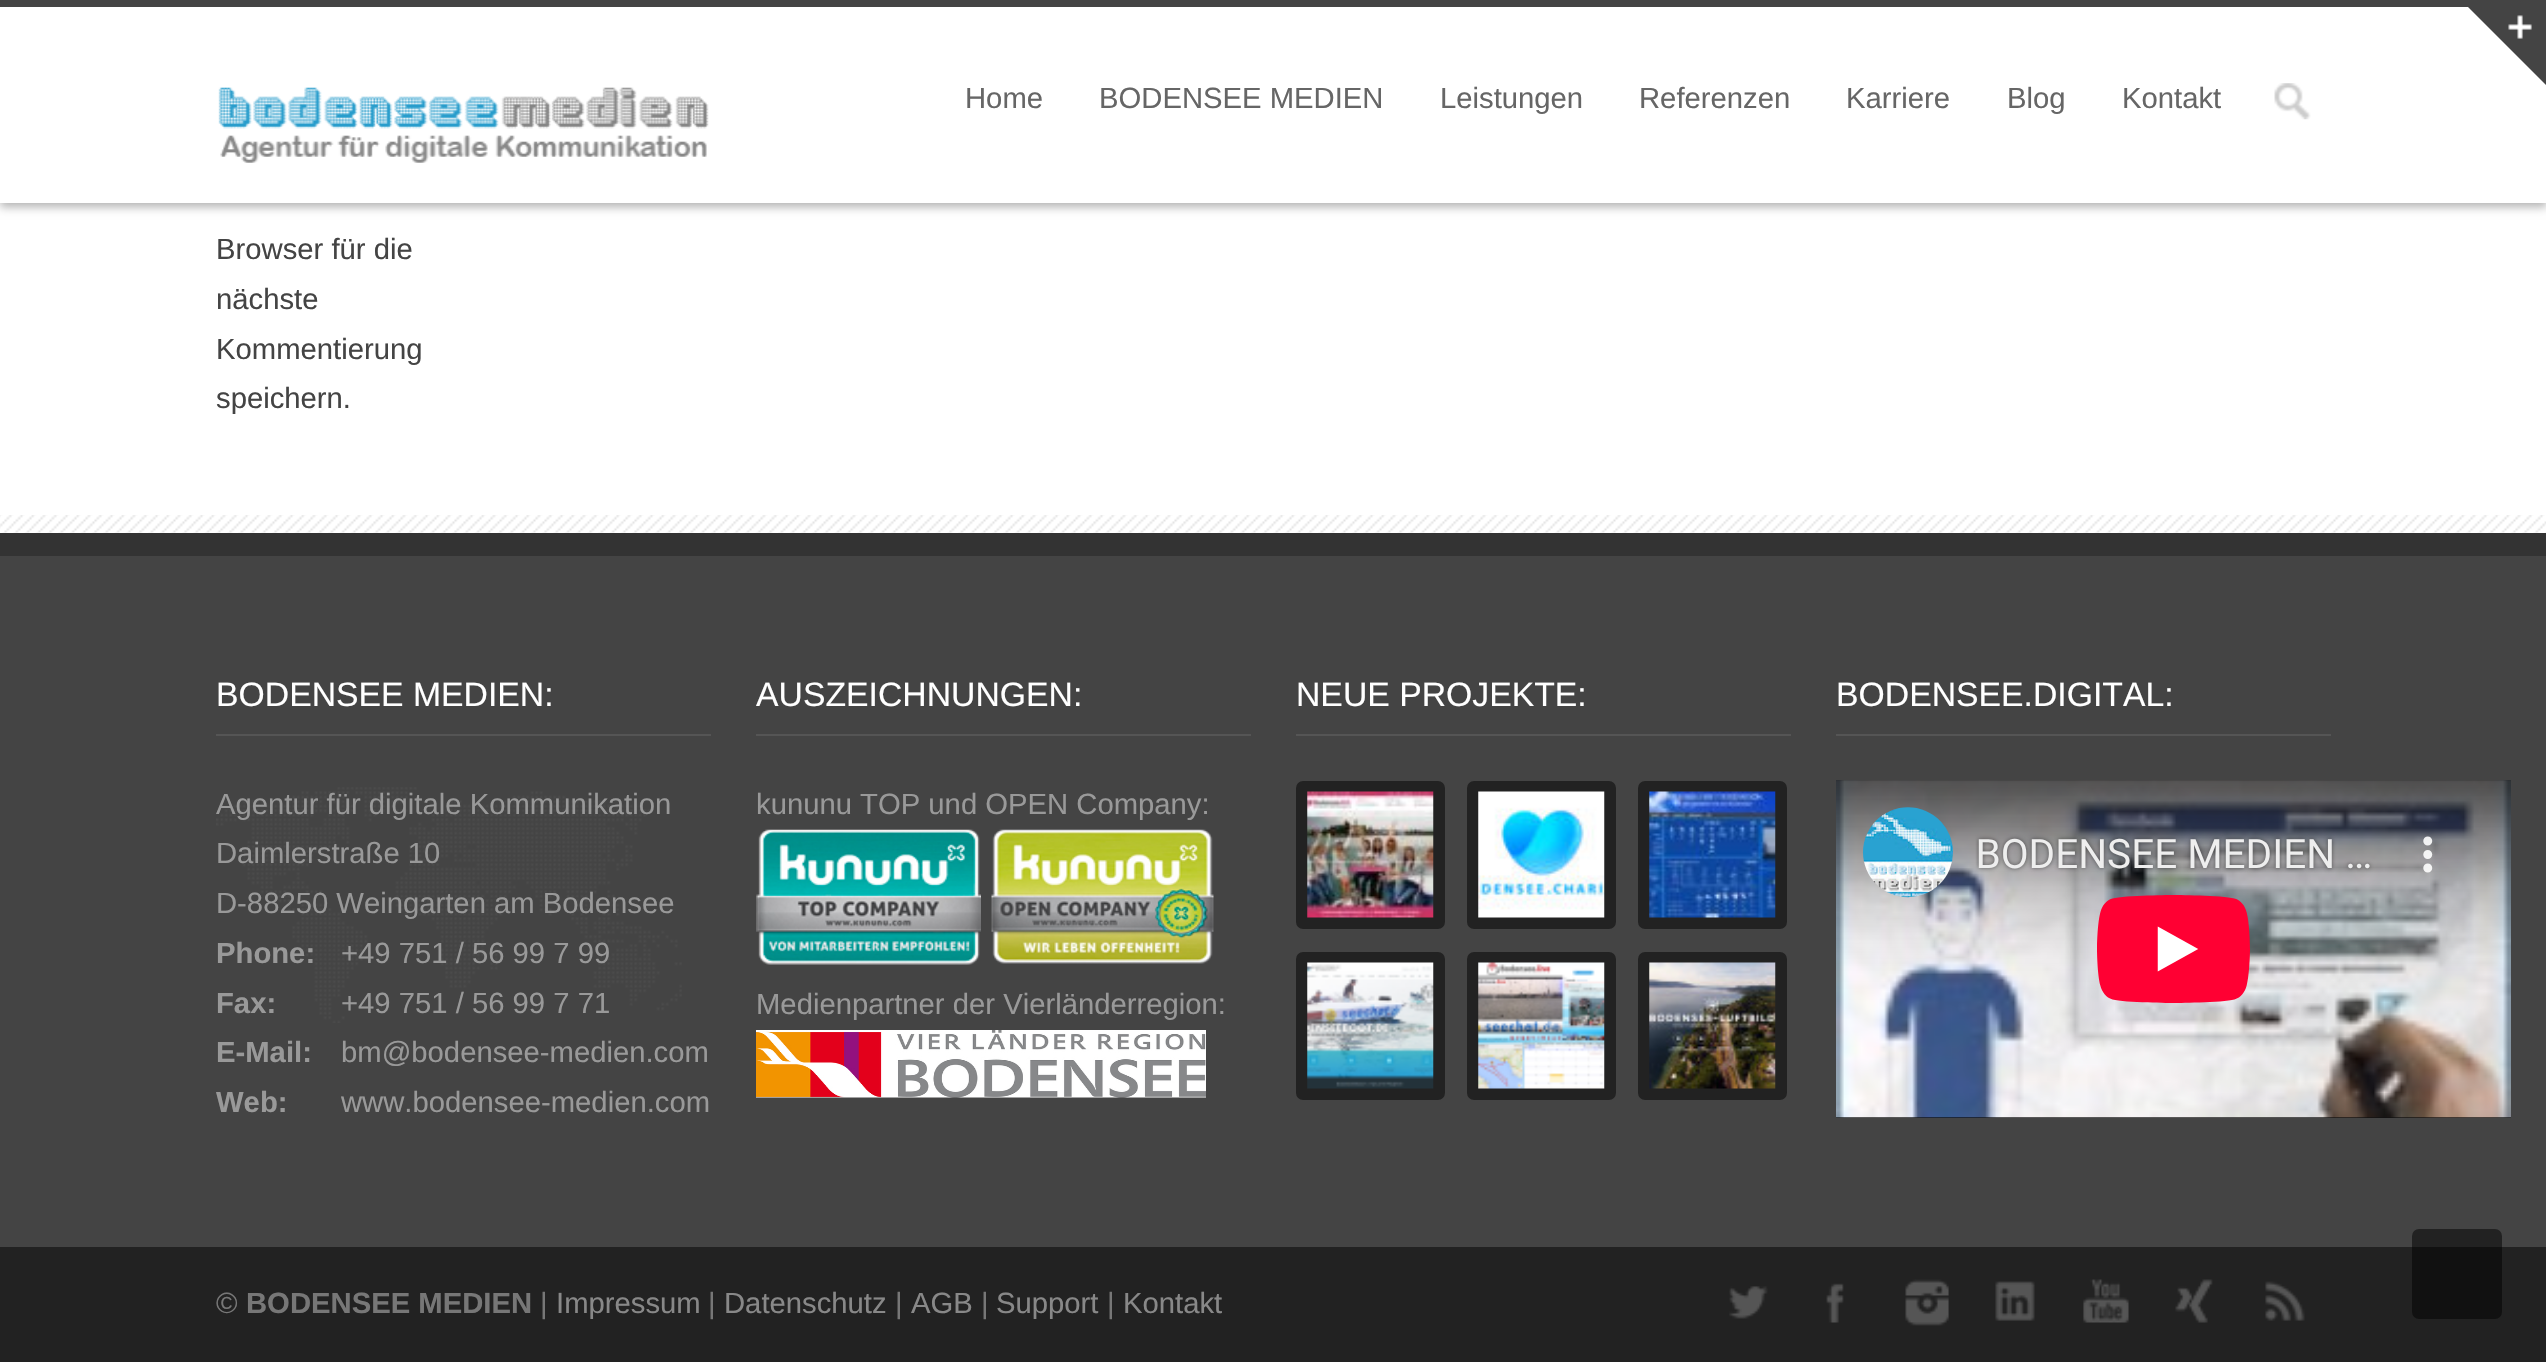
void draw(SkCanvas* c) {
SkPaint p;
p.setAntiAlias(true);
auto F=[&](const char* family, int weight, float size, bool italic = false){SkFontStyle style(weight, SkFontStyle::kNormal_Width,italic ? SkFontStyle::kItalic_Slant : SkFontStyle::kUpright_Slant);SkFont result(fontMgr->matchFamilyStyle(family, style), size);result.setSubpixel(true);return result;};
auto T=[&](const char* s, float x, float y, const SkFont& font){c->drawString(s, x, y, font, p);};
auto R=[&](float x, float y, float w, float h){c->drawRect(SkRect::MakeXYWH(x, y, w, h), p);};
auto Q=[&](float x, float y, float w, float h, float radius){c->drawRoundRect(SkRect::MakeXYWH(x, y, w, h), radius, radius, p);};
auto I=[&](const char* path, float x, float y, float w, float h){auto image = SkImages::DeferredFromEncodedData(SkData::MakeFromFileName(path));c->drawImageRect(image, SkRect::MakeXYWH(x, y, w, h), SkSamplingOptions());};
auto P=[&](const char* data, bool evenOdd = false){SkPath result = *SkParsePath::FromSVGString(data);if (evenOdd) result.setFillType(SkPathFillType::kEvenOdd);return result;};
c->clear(0xffffffff);
p.setColor(0x4d000000);
p.setMaskFilter(SkMaskFilter::MakeBlur(kNormal_SkBlurStyle, 4.5));
c->drawRect(SkRect::MakeXYWH(0,5,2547,202),p);
p.setMaskFilter(nullptr);
p.setColor(0xff444444);
R(0,0,2468,7);
p.setColor(0xffffffff);
R(0,7,2546,196);
p.setColor(0xff444444);
c->drawPath(P("M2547-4v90l-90-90z"),p);
I("1.png",2508,15,24,24);
I("2.png",218,87,491,76);
auto f1 = F("Liberation Sans",400,29.25);
p.setColor(0xff666666);
T("Home",965,108,f1);
T("BODENSEE MEDIEN",1099,108,f1);
T("Leistungen",1440,108,f1);
T("Referenzen",1639,108,f1);
T("Karriere",1846,108,f1);
T("Blog",2007,108,f1);
T("Kontakt",2122,108,f1);
I("3.png",2274,83,37,37);
p.setColor(0xff444444);
T("Browser für die",216,259,f1);
T("nächste",216,309,f1);
T("Kommentierung",216,359,f1);
T("speichern.",216,408,f1);
I("4.png",0,515,2546,18);
R(0,556,2546,691);
p.setColor(0xff333333);
R(0,533,2546,23);
I("5.png",216,787,466,236);
p.setColor(0xff555555);
R(216,734,495,2);
auto f2 = F("Liberation Sans",400,33.75);
p.setColor(0xffffffff);
T("BODENSEE MEDIEN:",216,706,f2);
p.setColor(0xff999999);
T("Agentur für digitale Kommunikation",216,814,f1);
T("Daimlerstraße 10",216,863,f1);
T("D-88250 Weingarten am Bodensee",216,913,f1);
auto f3 = F("Liberation Sans",700,29.25);
T("Phone:",216,963,f3);
T("+49 751 / 56 99 7 99",341,963,f1);
T("Fax:",216,1013,f3);
T("+49 751 / 56 99 7 71",341,1013,f1);
T("E-Mail:",216,1062,f3);
T("bm@bodensee-medien.com",341,1062,f1);
T("Web:",216,1112,f3);
T("www.bodensee-medien.com",341,1112,f1);
p.setColor(0xff555555);
R(756,734,495,2);
p.setColor(0xffffffff);
T("AUSZEICHNUNGEN:",756,706,f2);
p.setColor(0xff999999);
T("kununu TOP und OPEN Company:",756,814,f1);
I("6.png",756,829,225,136);
I("7.png",991,829,223,135);
T("Medienpartner der Vierländerregion:",756,1014,f1);
I("8.png",756,1030,450,68);
p.setColor(0xff555555);
R(1296,734,495,2);
p.setColor(0xffffffff);
T("NEUE PROJEKTE:",1296,706,f2);
p.setColor(0xff222222);
c->drawRoundRect(SkRect::MakeXYWH(1297,782,147,146),6,6,p);
p.setStroke(true);
p.setStrokeWidth(2);
c->drawRoundRect(SkRect::MakeXYWH(1297,782,147,146),6,6,p);
I("9.png",1307,791,127,127);
p.setStroke(false);
c->drawRoundRect(SkRect::MakeXYWH(1468,782,147,146),6,6,p);
p.setStroke(true);
c->drawRoundRect(SkRect::MakeXYWH(1468,782,147,146),6,6,p);
I("10.png",1478,791,127,127);
p.setStroke(false);
c->drawRoundRect(SkRect::MakeXYWH(1639,782,147,146),6,6,p);
p.setStroke(true);
c->drawRoundRect(SkRect::MakeXYWH(1639,782,147,146),6,6,p);
I("11.png",1649,791,127,127);
p.setStroke(false);
c->drawRoundRect(SkRect::MakeXYWH(1297,953,147,146),6,6,p);
p.setStroke(true);
c->drawRoundRect(SkRect::MakeXYWH(1297,953,147,146),6,6,p);
I("12.png",1307,962,127,127);
p.setStroke(false);
c->drawRoundRect(SkRect::MakeXYWH(1468,953,147,146),6,6,p);
p.setStroke(true);
c->drawRoundRect(SkRect::MakeXYWH(1468,953,147,146),6,6,p);
I("13.png",1478,962,127,127);
p.setStroke(false);
c->drawRoundRect(SkRect::MakeXYWH(1639,953,147,146),6,6,p);
p.setStroke(true);
c->drawRoundRect(SkRect::MakeXYWH(1639,953,147,146),6,6,p);
I("14.png",1649,962,127,127);
p.setStroke(false);
p.setColor(0xff555555);
R(1836,734,495,2);
p.setColor(0xffffffff);
T("BODENSEE.DIGITAL:",1836,706,f2);
I("15.png",1836,780,675,338);
p.setColor(0xff222222);
R(0,1247,2546,115);
p.setColor(0xff777777);
T("©",216,1313,f1);
T("BODENSEE MEDIEN",246,1313,f3);
T("|",540,1313,f1);
p.setColor(0xff888888);
T("Impressum",556,1313,f1);
p.setColor(0xff777777);
T("|",708,1313,f1);
p.setColor(0xff888888);
T("Datenschutz",724,1313,f1);
p.setColor(0xff777777);
T("|",895,1313,f1);
p.setColor(0xff888888);
T("AGB",911,1313,f1);
p.setColor(0xff777777);
T("|",981,1313,f1);
p.setColor(0xff888888);
T("Support",996,1313,f1);
p.setColor(0xff777777);
T("|",1107,1313,f1);
p.setColor(0xff888888);
T("Kontakt",1123,1313,f1);
I("16.png",1729,1286,39,33);
I("17.png",1826,1283,18,40);
I("18.png",1905,1279,44,47);
I("19.png",1995,1281,40,40);
I("20.png",2083,1279,46,44);
I("21.png",2175,1279,38,44);
I("22.png",2265,1281,40,40);
p.setColor(0x80000000);
Q(2412,1229,90,90,7);
}
